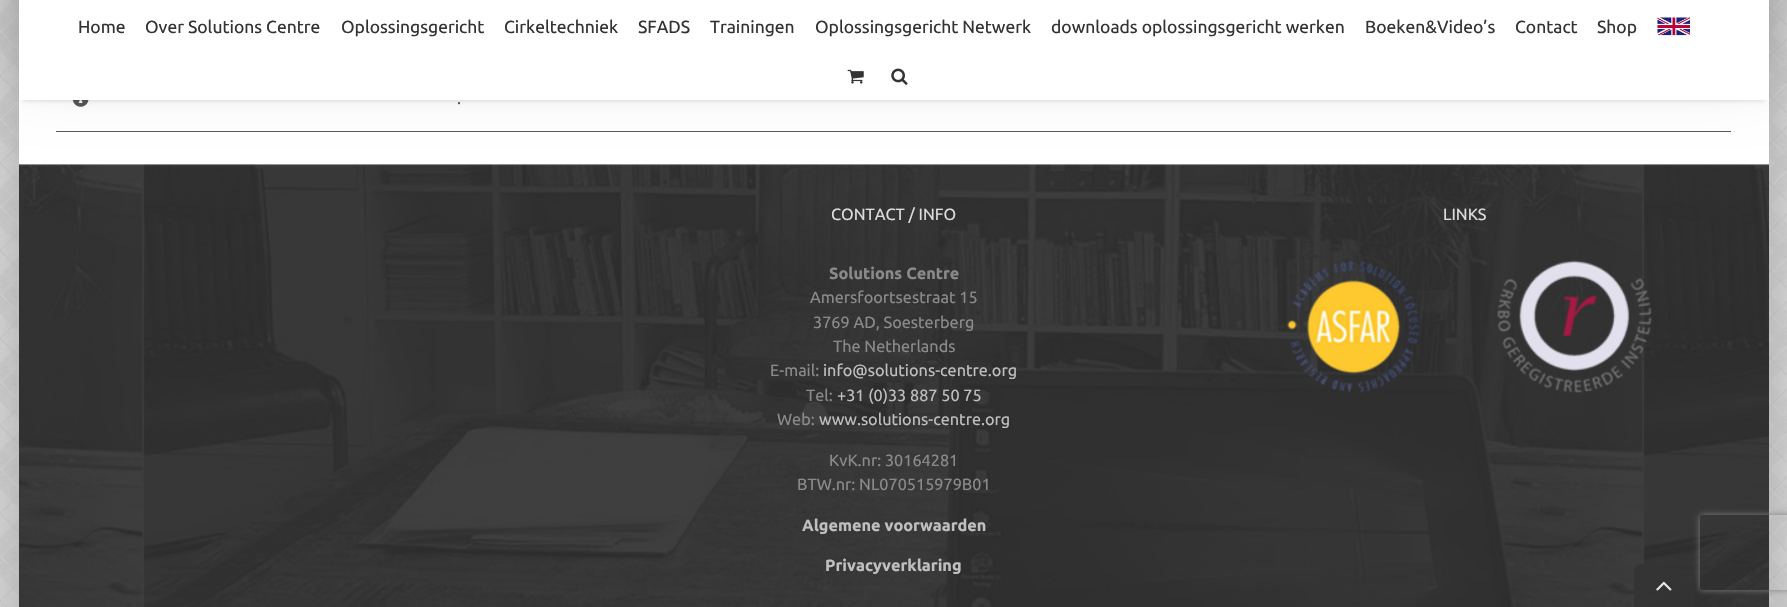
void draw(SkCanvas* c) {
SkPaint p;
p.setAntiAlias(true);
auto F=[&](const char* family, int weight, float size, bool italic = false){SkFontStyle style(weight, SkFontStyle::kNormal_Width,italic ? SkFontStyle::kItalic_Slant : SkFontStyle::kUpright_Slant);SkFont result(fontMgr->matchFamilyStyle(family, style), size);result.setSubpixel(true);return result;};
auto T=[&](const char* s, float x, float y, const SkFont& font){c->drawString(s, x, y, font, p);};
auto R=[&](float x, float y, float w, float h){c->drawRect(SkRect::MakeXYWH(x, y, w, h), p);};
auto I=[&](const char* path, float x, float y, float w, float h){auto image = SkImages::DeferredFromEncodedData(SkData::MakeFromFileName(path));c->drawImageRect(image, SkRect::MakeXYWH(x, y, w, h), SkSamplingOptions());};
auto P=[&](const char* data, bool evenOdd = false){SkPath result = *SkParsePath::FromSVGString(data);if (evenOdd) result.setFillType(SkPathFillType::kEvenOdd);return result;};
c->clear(0xffffffff);
I("1.png",0,0,1787,607);
p.setColor(0x38000000);
p.setMaskFilter(SkMaskFilter::MakeBlur(kNormal_SkBlurStyle, 31));
c->drawRect(SkRect::MakeXYWH(18,-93,1752,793),p);
p.setMaskFilter(nullptr);
p.setColor(0xffffffff);
R(19,100,1750,65);
p.setColor(0xff575756);
R(56,131,1675,1);
I("5.png",72,100,17,7);
I("6.png",19,164,1750,443);
p.setColor(0x24000000);
p.setMaskFilter(SkMaskFilter::MakeBlur(kNormal_SkBlurStyle, 31));
c->drawRect(SkRect::MakeXYWH(21,-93,1745,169),p);
p.setMaskFilter(nullptr);
p.setColor(0x1f000000);
p.setMaskFilter(SkMaskFilter::MakeBlur(kNormal_SkBlurStyle, 2));
c->drawRect(SkRect::MakeXYWH(23,9,1742,92),p);
p.setMaskFilter(nullptr);
p.setColor(0xffffffff);
R(19,0,1750,100);
auto f1 = F("Ubuntu",400,17.5);
p.setColor(0xff333333);
T("Home",78,33,f1);
T("Over Solutions Centre",145,33,f1);
T("Oplossingsgericht",341,33,f1);
T("Cirkeltechniek",504,33,f1);
T("SFADS",638,33,f1);
T("Trainingen",710,33,f1);
T("Oplossingsgericht Netwerk",815,33,f1);
T("downloads oplossingsgericht werken",1051,33,f1);
T("Boeken&Video’s",1365,33,f1);
T("Contact",1515,33,f1);
T("Shop",1597,33,f1);
I("2.png",1657,17,33,19);
I("3.png",847,69,17,15);
I("4.png",891,68,17,17);
auto f2 = F("Ubuntu",400,16.25);
p.setColor(0xff575756);
T(".",457,104,f2);
p.setColor(0xffdddddd);
T("CONTACT / INFO",831,220,f2);
auto f3 = F("Ubuntu",700,16.25);
p.setColor(0xff8c8989);
T("Solutions Centre",829,279,f3);
T("Amersfoortsestraat 15",810,303,f2);
T("3769 AD, Soesterberg",813,328,f2);
T("The Netherlands",833,352,f2);
T("E-mail:",770,376,f2);
p.setColor(0xffbfbfbf);
T("info@solutions-centre.org",823,376,f2);
p.setColor(0xff8c8989);
T("Tel:",806,401,f2);
p.setColor(0xffbfbfbf);
T("+31 (0)33 887 50 75",837,401,f2);
p.setColor(0xff8c8989);
T("Web:",777,425,f2);
p.setColor(0xffbfbfbf);
T("www.solutions-centre.org",819,425,f2);
p.setColor(0xff8c8989);
T("KvK.nr: 30164281",829,466,f2);
T("BTW.nr: NL070515979B01",797,490,f2);
p.setColor(0xffbfbfbf);
T("Algemene voorwaarden",802,531,f3);
T("Privacyverklaring",825,571,f3);
p.setColor(0xffdddddd);
T("LINKS",1443,220,f2);
I("7.png",1287,260,132,133);
I("8.png",1497,260,155,133);
c->save();
c->clipPath(P("M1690 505h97v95h-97zm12.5 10h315c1.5 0 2.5 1 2.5 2.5v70c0 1.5-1 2.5-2.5 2.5h-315c-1.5 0-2.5-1-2.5-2.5v-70c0-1.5 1-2.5 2.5-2.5z",true),true);
p.setColor(0xff808080);
p.setMaskFilter(SkMaskFilter::MakeBlur(kNormal_SkBlurStyle, 3));
c->drawRoundRect(SkRect::MakeXYWH(1700,515,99,75),2.5,2.5,p);
p.setMaskFilter(nullptr);
c->restore();
p.setColor(0xe6333333);
c->drawPath(P("M1642 564h44c4.5 0 8 3.5 8 8v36h-60v-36c0-4.5 3.5-8 8-8z"),p);
I("9.png",1656,581,16,10);
}
